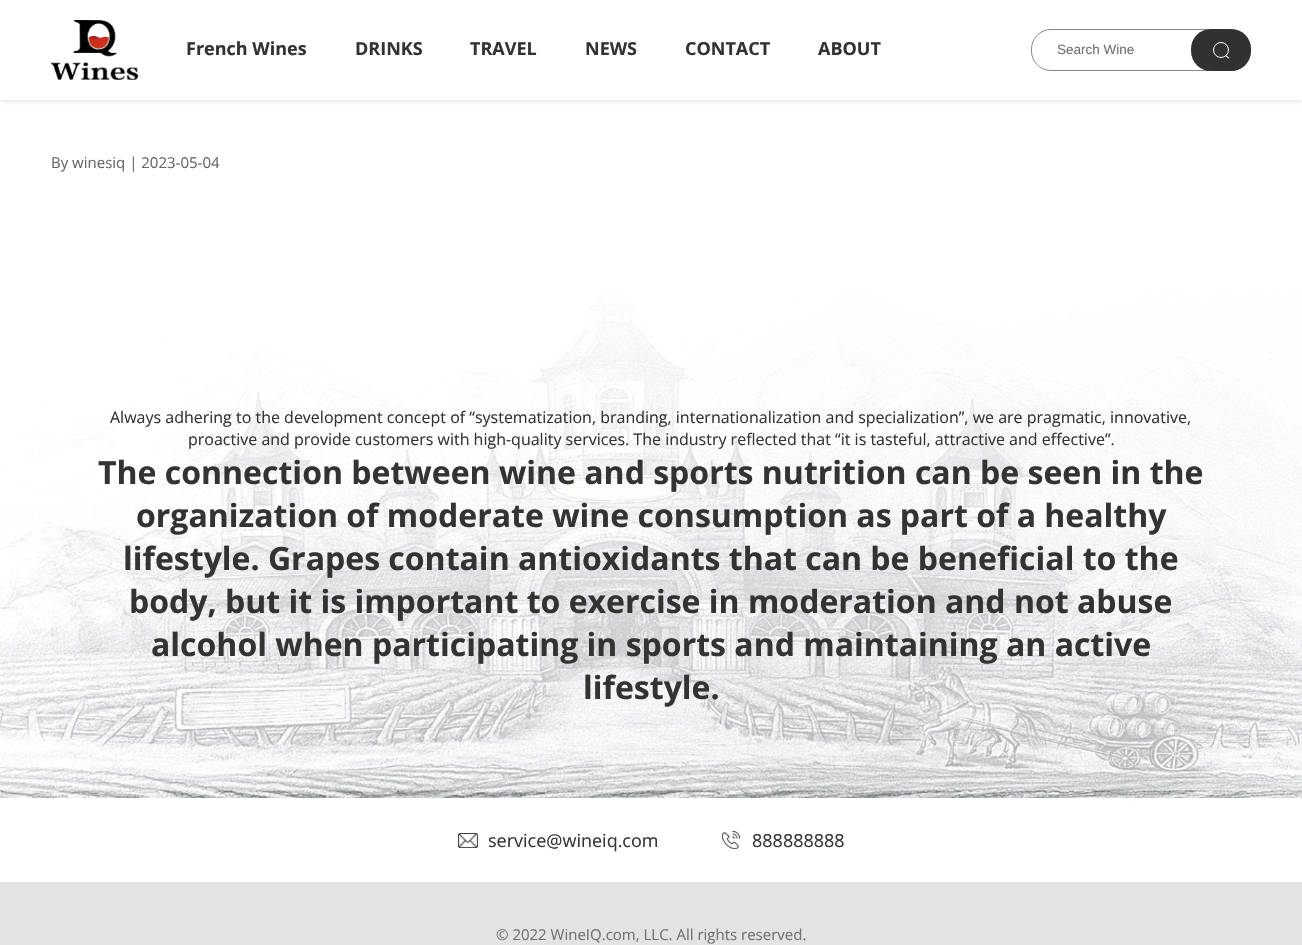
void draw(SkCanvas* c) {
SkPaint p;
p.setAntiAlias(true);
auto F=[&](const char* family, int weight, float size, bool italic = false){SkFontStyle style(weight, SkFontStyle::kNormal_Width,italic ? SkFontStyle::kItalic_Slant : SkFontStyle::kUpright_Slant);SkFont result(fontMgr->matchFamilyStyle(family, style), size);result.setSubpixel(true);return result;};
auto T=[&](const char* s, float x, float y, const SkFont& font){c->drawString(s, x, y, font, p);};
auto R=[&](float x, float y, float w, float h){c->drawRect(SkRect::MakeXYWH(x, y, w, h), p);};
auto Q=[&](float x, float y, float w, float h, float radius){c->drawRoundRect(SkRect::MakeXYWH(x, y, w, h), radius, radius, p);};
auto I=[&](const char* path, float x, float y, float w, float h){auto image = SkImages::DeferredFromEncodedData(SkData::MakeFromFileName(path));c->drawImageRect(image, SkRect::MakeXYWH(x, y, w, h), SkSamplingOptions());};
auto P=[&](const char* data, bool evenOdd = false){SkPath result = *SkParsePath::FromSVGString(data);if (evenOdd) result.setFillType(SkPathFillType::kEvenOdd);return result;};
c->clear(0xffffffff);
p.setColor(0x33000000);
p.setMaskFilter(SkMaskFilter::MakeBlur(kNormal_SkBlurStyle, 2.5));
c->drawRect(SkRect::MakeXYWH(0,0,1302,100),p);
p.setMaskFilter(nullptr);
p.setColor(0xffffffff);
R(0,0,1302,100);
I("1.png",51,20,88,60);
auto f1 = F("Open Sans",700,18);
p.setColor(0xff333333);
T("French Wines",186,55,f1);
T("DRINKS",355,55,f1);
T("TRAVEL",470,55,f1);
T("NEWS",585,55,f1);
T("CONTACT",685,55,f1);
T("ABOUT",818,55,f1);
p.setStroke(true);
p.setStrokeWidth(1);
p.setColor(0xff878787);
c->drawRoundRect(SkRect::MakeXYWH(1031.5,29.5,219,41),19.5,19.5,p);
auto f2 = F("Liberation Sans",400,13.5);
p.setStroke(false);
p.setColor(0xff707070);
T("Search Wine",1057,54,f2);
p.setColor(0xff313131);
Q(1191,29,60,42,20);
p.setStroke(true);
p.setColor(0xffffffff);
c->drawCircle(1221,50,7.5,p);
p.setStroke(false);
c->drawPath(P("M1225.5 56l1-.5l3 2.5l-1 .5z"),p);
auto f3 = F("Open Sans",400,15);
p.setColor(0xff666666);
T("By winesiq | 2023-05-04",51,168,f3);
I("2.png",0,291,1302,507);
auto f4 = F("Open Sans",400,16);
p.setColor(0xff333333);
T("Always adhering to the development concept of “systematization, branding, internationalization and specialization”, we are pragmatic, innovative,",110,423,f4);
T("proactive and provide customers with high-quality services. The industry reflected that “it is tasteful, attractive and effective”.",188,445,f4);
auto f5 = F("Open Sans",700,32);
T("The connection between wine and sports nutrition can be seen in the",98,484,f5);
T("organization of moderate wine consumption as part of a healthy",136,527,f5);
T("lifestyle. Grapes contain antioxidants that can be beneficial to the",123,570,f5);
T("body, but it is important to exercise in moderation and not abuse",129,613,f5);
T("alcohol when participating in sports and maintaining an active",151,656,f5);
T("lifestyle.",583,699,f5);
I("3.png",458,833,20,15);
auto f6 = F("Open Sans",400,18);
T("service@wineiq.com",488,847,f6);
I("4.png",722,831,18,18);
T("888888888",752,847,f6);
p.setColor(0xffe3e3e3);
R(0,882,1302,63);
p.setColor(0xff707070);
T("© 2022 WineIQ.com, LLC. All rights reserved.",496,940,f3);
}
